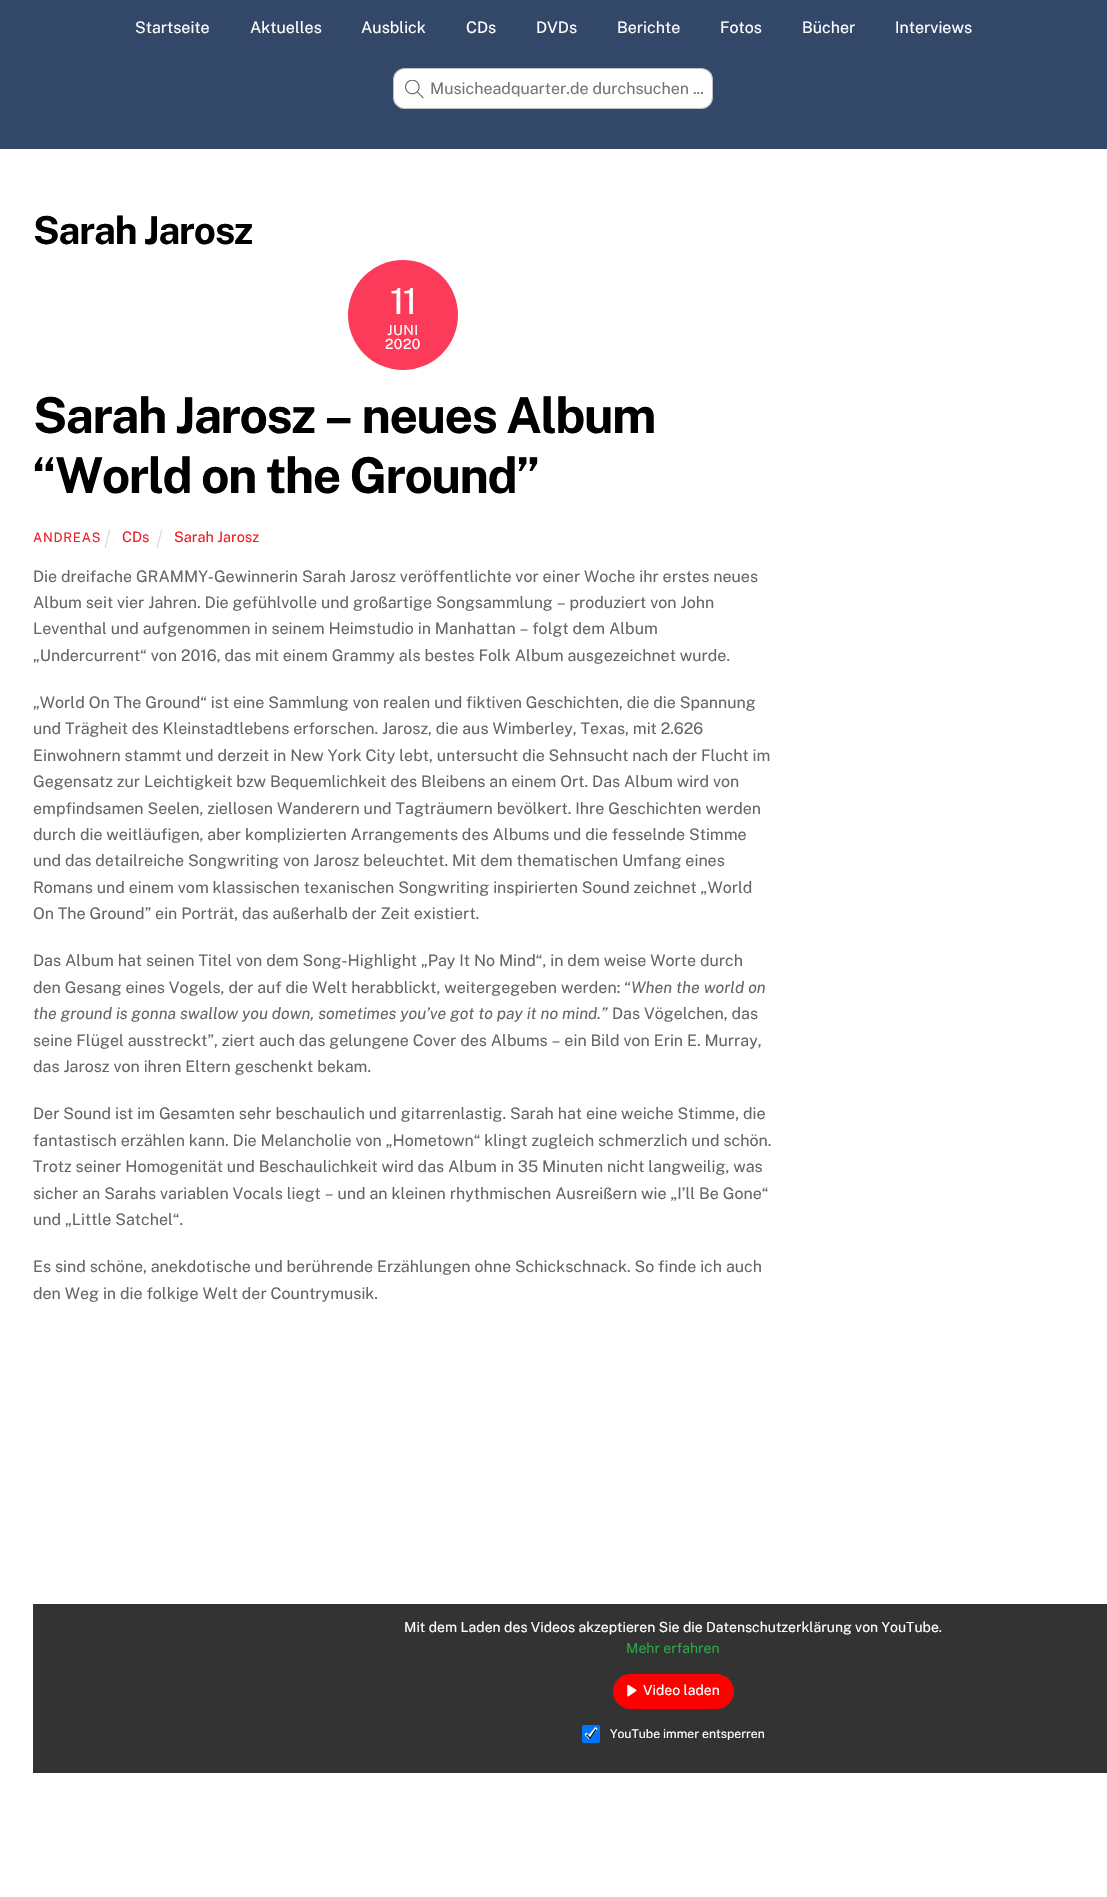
void draw(SkCanvas* c) {
SkPaint p;
p.setAntiAlias(true);
auto F=[&](const char* family, int weight, float size, bool italic = false){SkFontStyle style(weight, SkFontStyle::kNormal_Width,italic ? SkFontStyle::kItalic_Slant : SkFontStyle::kUpright_Slant);SkFont result(fontMgr->matchFamilyStyle(family, style), size);result.setSubpixel(true);return result;};
auto T=[&](const char* s, float x, float y, const SkFont& font){c->drawString(s, x, y, font, p);};
auto L=[&](const char* s, float x, float y, const SkFont& font, const SkPaint& ink, float letter, float word){std::vector<SkGlyphID> glyphs(font.countText(s, strlen(s), SkTextEncoding::kUTF8));std::vector<float> xs(glyphs.size());font.textToGlyphs(s, strlen(s), SkTextEncoding::kUTF8, glyphs);font.getXPos(glyphs, xs, x);float extra = 0;for (size_t i = 0; i < glyphs.size(); i++) {xs[i] += extra;extra += letter + word * (glyphs[i] == font.unicharToGlyph(' '));}c->drawTextBlob(SkTextBlob::MakeFromPosHGlyphs(glyphs, xs, y, font), 0, 0, ink);};
auto R=[&](float x, float y, float w, float h){c->drawRect(SkRect::MakeXYWH(x, y, w, h), p);};
auto Q=[&](float x, float y, float w, float h, float radius){c->drawRoundRect(SkRect::MakeXYWH(x, y, w, h), radius, radius, p);};
auto I=[&](const char* path, float x, float y, float w, float h){auto image = SkImages::DeferredFromEncodedData(SkData::MakeFromFileName(path));c->drawImageRect(image, SkRect::MakeXYWH(x, y, w, h), SkSamplingOptions());};
auto P=[&](const char* data, bool evenOdd = false){SkPath result = *SkParsePath::FromSVGString(data);if (evenOdd) result.setFillType(SkPathFillType::kEvenOdd);return result;};
c->clear(0xffffffff);
p.setColor(0xff334868);
R(0,0,1107,149);
auto f1 = F("Public Sans",400,16);
p.setColor(0xffffffff);
T("Startseite",135,33,f1);
T("Aktuelles",250,33,f1);
T("Ausblick",361,33,f1);
T("CDs",466,33,f1);
T("DVDs",536,33,f1);
T("Berichte",617,33,f1);
T("Fotos",720,33,f1);
T("Bücher",802,33,f1);
T("Interviews",895,33,f1);
Q(393,68,320,41,12);
p.setStroke(true);
p.setStrokeWidth(1);
p.setColor(0x40000000);
c->drawRoundRect(SkRect::MakeXYWH(393.5,68.5,319,40),11.5,11.5,p);
I("1.png",405,80,19,19);
p.setStroke(false);
p.setColor(0xff757575);
T("Musicheadquarter.de durchsuchen ...",430,94,f1);
auto f2 = F("Public Sans",700,38.5);
p.setColor(0xff000000);
L("Sarah Jarosz",33,244,f2,p,-1.1,0);
p.setColor(0xfffc3a59);
c->drawCircle(403,315,55,p);
auto f3 = F("Public Sans",400,36);
p.setColor(0xffffffff);
L("11",390,314,f3,p,-2,0);
auto f4 = F("Public Sans",400,14);
L("JUNI",387,335,f4,p,.5,0);
L("2020",385,349,f4,p,.5,0);
auto f5 = F("Public Sans",700,49.6);
p.setColor(0xff000000);
L("Sarah Jarosz – neues Album",33,433,f5,p,-1.5,0);
L("“World on the Ground”",33,493,f5,p,-1.5,0);
auto f6 = F("Public Sans",400,13);
p.setColor(0xffed1e24);
L("ANDREAS",33,542,f6,p,.75,0);
auto f7 = F("Public Sans",400,14.5);
T("CDs",122,542,f7);
p.setColor(0xffd3d3d3);
c->drawPath(P("M109.5 529h1l-5 19h-1zm52 0h1l-5 19h-1z"),p);
p.setColor(0xffed1e24);
T("Sarah Jarosz",174,542,f7);
p.setColor(0xff666666);
T("Die dreifache GRAMMY-Gewinnerin Sarah Jarosz veröffentlichte vor einer Woche ihr erstes neues",33,582,f1);
T("Album seit vier Jahren. Die gefühlvolle und großartige Songsammlung – produziert von John",33,608,f1);
T("Leventhal und aufgenommen in seinem Heimstudio in Manhattan – folgt dem Album",33,634,f1);
T("„Undercurrent“ von 2016, das mit einem Grammy als bestes Folk Album ausgezeichnet wurde.",33,661,f1);
T("„World On The Ground“ ist eine Sammlung von realen und fiktiven Geschichten, die die Spannung",33,708,f1);
T("und Trägheit des Kleinstadtlebens erforschen. Jarosz, die aus Wimberley, Texas, mit 2.626",33,734,f1);
T("Einwohnern stammt und derzeit in New York City lebt, untersucht die Sehnsucht nach der Flucht im",33,761,f1);
T("Gegensatz zur Leichtigkeit bzw Bequemlichkeit des Bleibens an einem Ort. Das Album wird von",33,787,f1);
T("empfindsamen Seelen, ziellosen Wanderern und Tagträumern bevölkert. Ihre Geschichten werden",33,814,f1);
T("durch die weitläufigen, aber komplizierten Arrangements des Albums und die fesselnde Stimme",33,840,f1);
T("und das detailreiche Songwriting von Jarosz beleuchtet. Mit dem thematischen Umfang eines",33,866,f1);
T("Romans und einem vom klassischen texanischen Songwriting inspirierten Sound zeichnet „World",33,893,f1);
T("On The Ground” ein Porträt, das außerhalb der Zeit existiert.",33,919,f1);
T("Das Album hat seinen Titel von dem Song-Highlight „Pay It No Mind“, in dem weise Worte durch",33,966,f1);
T("den Gesang eines Vogels, der auf die Welt herabblickt, weitergegeben werden: “",33,993,f1);
auto f8 = F("Public Sans",400,16,true);
T("When the world on",631,993,f8);
T("the ground is gonna swallow you down, sometimes you’ve got to pay it no mind.”",33,1019,f8);
T("Das Vögelchen, das",612,1019,f1);
T("seine Flügel ausstreckt”, ziert auch das gelungene Cover des Albums – ein Bild von Erin E. Murray,",33,1046,f1);
T("das Jarosz von ihren Eltern geschenkt bekam.",33,1072,f1);
T("Der Sound ist im Gesamten sehr beschaulich und gitarrenlastig. Sarah hat eine weiche Stimme, die",33,1119,f1);
T("fantastisch erzählen kann. Die Melancholie von „Hometown“ klingt zugleich schmerzlich und schön.",33,1146,f1);
T("Trotz seiner Homogenität und Beschaulichkeit wird das Album in 35 Minuten nicht langweilig, was",33,1172,f1);
T("sicher an Sarahs variablen Vocals liegt – und an kleinen rhythmischen Ausreißern wie „I’ll Be Gone“",33,1199,f1);
T("und „Little Satchel“.",33,1225,f1);
T("Es sind schöne, anekdotische und berührende Erzählungen ohne Schickschnack. So finde ich auch",33,1272,f1);
T("den Weg in die folkige Welt der Countrymusik.",33,1299,f1);
p.setColor(0xff333333);
R(33,1604,1074,169);
p.setColor(0xffffffff);
T("Mit dem Laden des Videos akzeptieren Sie die Datenschutzerklärung von YouTube.",404,1632,f4);
p.setColor(0xff28a745);
T("Mehr erfahren",626,1653,f4);
p.setColor(0xffff0000);
Q(613,1674,121,35,17.5);
I("2.png",627,1685,10,12);
p.setColor(0xffffffff);
T("Video laden",643,1695,f4);
p.setColor(0xff0075ff);
Q(582,1725,18,18,2);
p.setStroke(true);
p.setStrokeWidth(2.9);
p.setColor(0xffffffff);
c->drawPath(P("M585.5 1733.5l3.5 3.5l7.5-9"),p);
p.setStroke(false);
p.setColor(0xff000000);
c->drawPath(P("M589.5 1738l6-9l1 1l-6.5 9z"),p);
c->drawPath(P("M586 1735l1-1l3.5 4l-.5 1z"),p);
auto f9 = F("Public Sans",400,12.25);
p.setColor(0xffffffff);
T("YouTube immer entsperren",610,1738,f9);
}
